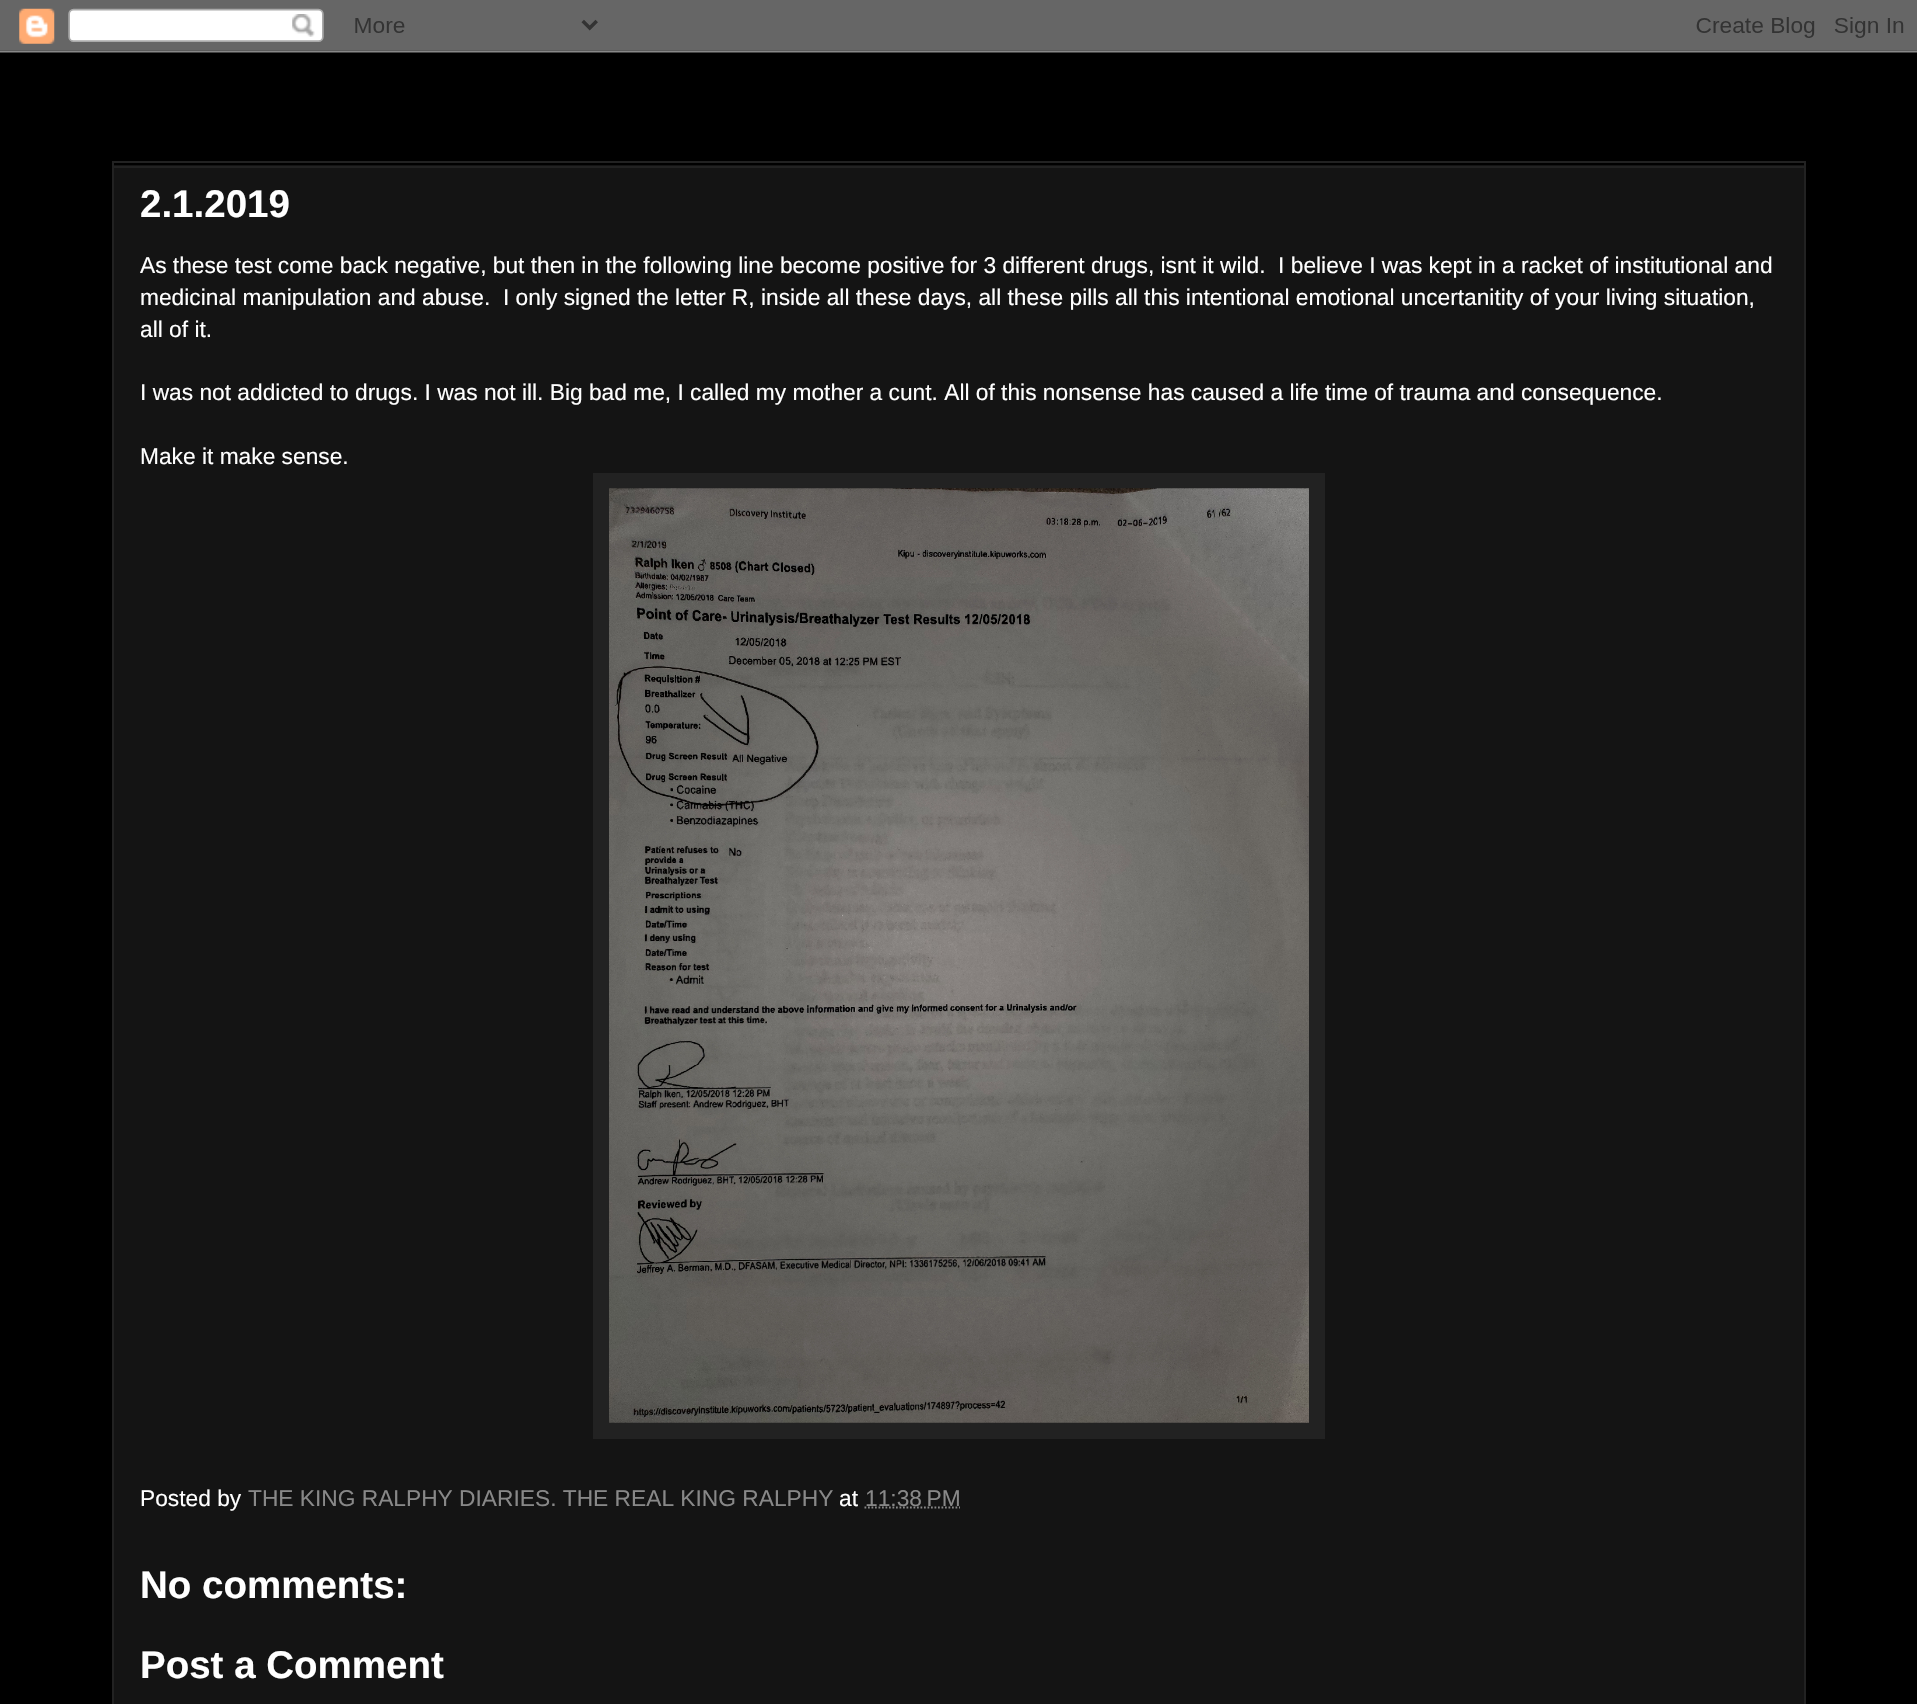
void draw(SkCanvas* c) {
SkPaint p;
p.setAntiAlias(true);
auto F=[&](const char* family, int weight, float size, bool italic = false){SkFontStyle style(weight, SkFontStyle::kNormal_Width,italic ? SkFontStyle::kItalic_Slant : SkFontStyle::kUpright_Slant);SkFont result(fontMgr->matchFamilyStyle(family, style), size);result.setSubpixel(true);return result;};
auto T=[&](const char* s, float x, float y, const SkFont& font){c->drawString(s, x, y, font, p);};
auto R=[&](float x, float y, float w, float h){c->drawRect(SkRect::MakeXYWH(x, y, w, h), p);};
auto I=[&](const char* path, float x, float y, float w, float h){auto image = SkImages::DeferredFromEncodedData(SkData::MakeFromFileName(path));c->drawImageRect(image, SkRect::MakeXYWH(x, y, w, h), SkSamplingOptions());};
auto P=[&](const char* data, bool evenOdd = false){SkPath result = *SkParsePath::FromSVGString(data);if (evenOdd) result.setFillType(SkPathFillType::kEvenOdd);return result;};
c->clear(0xff000000);
I("1.png",0,0,1917,53);
p.setColor(0xff141414);
R(114,165,1690,1539);
p.setStroke(true);
p.setStrokeWidth(2);
p.setColor(0xff222222);
c->drawRect(SkRect::MakeXYWH(113,162,1692,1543),p);
p.setStroke(false);
R(114,166,1690,2);
auto f1 = F("Liberation Sans",700,38.5);
p.setColor(0xffffffff);
T("2.1.2019",140,217,f1);
auto f2 = F("Liberation Sans",400,22.75);
T("As these test come back negative, but then in the following line become positive for 3 different drugs, isnt it wild.  I believe I was kept in a racket of institutional and",140,273,f2);
T("medicinal manipulation and abuse.  I only signed the letter R, inside all these days, all these pills all this intentional emotional uncertanitity of your living situation,",140,305,f2);
T("all of it.",140,337,f2);
T("I was not addicted to drugs. I was not ill. Big bad me, I called my mother a cunt. All of this nonsense has caused a life time of trauma and consequence.",140,400,f2);
T("Make it make sense.",140,464,f2);
p.setColor(0xff222222);
R(593,473,732,966);
I("2.png",609,488,700,935);
p.setColor(0xffffffff);
T("Posted by",140,1506,f2);
p.setColor(0xff888888);
T("THE KING RALPHY DIARIES. THE REAL KING RALPHY",248,1506,f2);
p.setColor(0xffffffff);
T("at",839,1506,f2);
p.setStroke(true);
p.setStrokeWidth(1.8);
p.setColor(0xff888888);
p.setPathEffect(SkDashPathEffect::Make({{1.75f,1.75f}}, 0));
c->drawPath(P("M864.5 1507.5h95.5"),p);
p.setPathEffect(nullptr);
p.setStroke(false);
T("11:38 PM",865,1506,f2);
p.setColor(0xffffffff);
T("No comments:",140,1598,f1);
T("Post a Comment",140,1678,f1);
}
